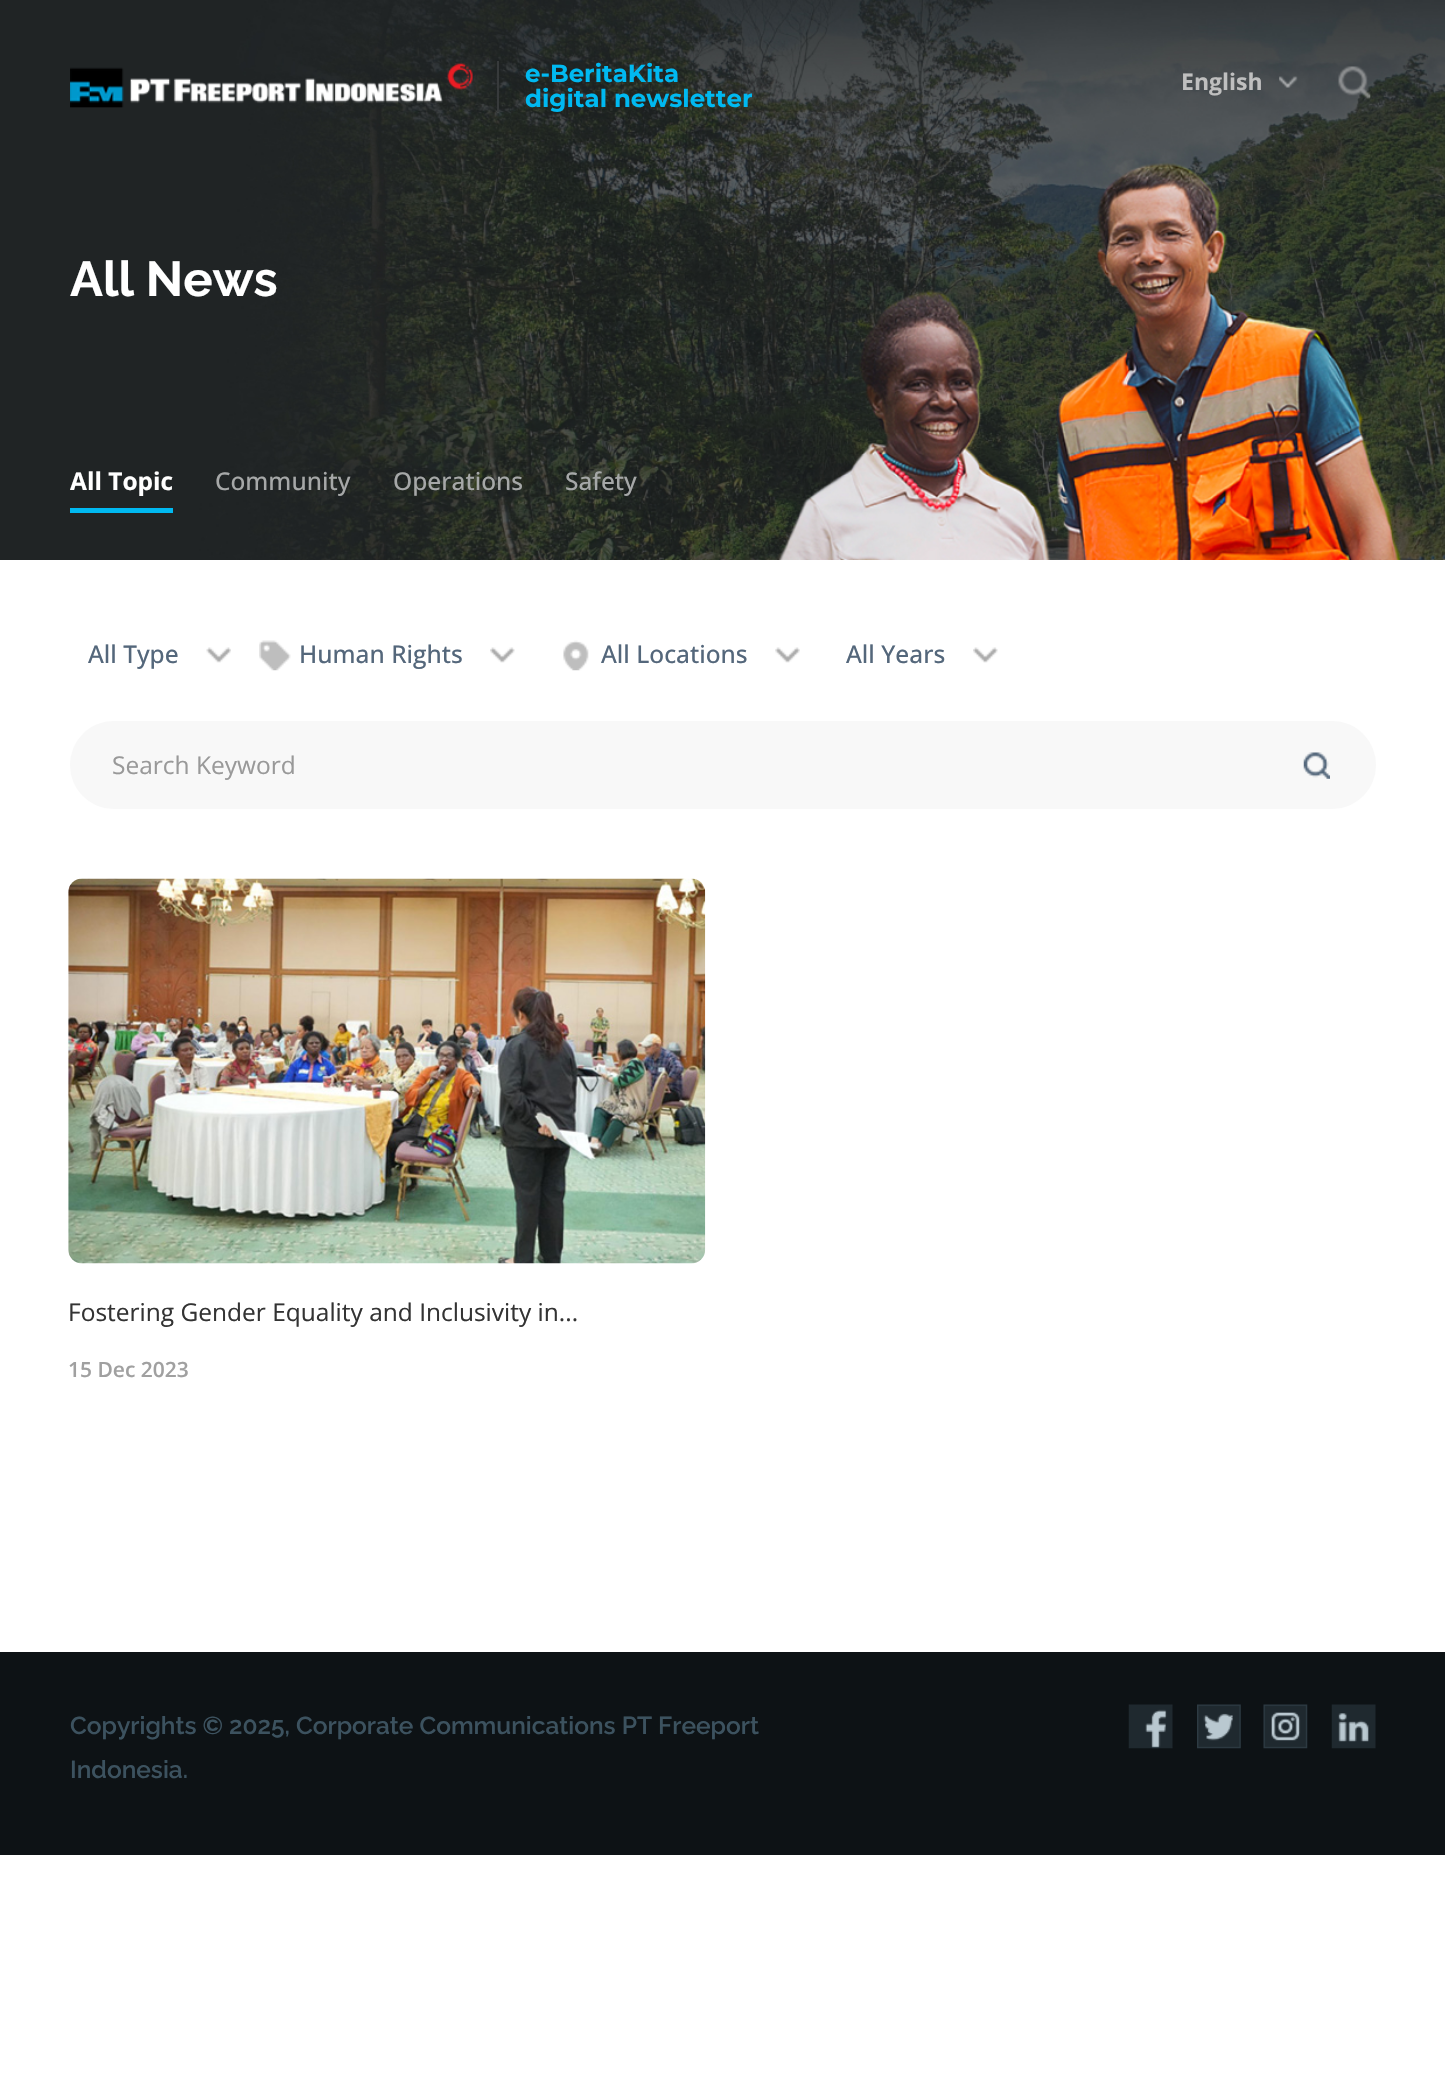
void draw(SkCanvas* c) {
SkPaint p;
p.setAntiAlias(true);
auto F=[&](const char* family, int weight, float size, bool italic = false){SkFontStyle style(weight, SkFontStyle::kNormal_Width,italic ? SkFontStyle::kItalic_Slant : SkFontStyle::kUpright_Slant);SkFont result(fontMgr->matchFamilyStyle(family, style), size);result.setSubpixel(true);return result;};
auto T=[&](const char* s, float x, float y, const SkFont& font){c->drawString(s, x, y, font, p);};
auto R=[&](float x, float y, float w, float h){c->drawRect(SkRect::MakeXYWH(x, y, w, h), p);};
auto Q=[&](float x, float y, float w, float h, float radius){c->drawRoundRect(SkRect::MakeXYWH(x, y, w, h), radius, radius, p);};
auto I=[&](const char* path, float x, float y, float w, float h){auto image = SkImages::DeferredFromEncodedData(SkData::MakeFromFileName(path));c->drawImageRect(image, SkRect::MakeXYWH(x, y, w, h), SkSamplingOptions());};
c->clear(0xffffffff);
I("4.png",0,0,1445,560);
I("1.png",70,63,403,45);
p.setColor(0xff373a3b);
R(497,61,2,51);
auto f1 = F("Montserrat",700,24.5);
p.setColor(0xff00b9f1);
T("e-BeritaKita",525,82,f1);
T("digital newsletter",525,107,f1);
auto f2 = F("Open Sans",700,23);
p.setColor(0xffbfbfbf);
T("English",1181,90,f2);
I("2.png",1279,76,19,12);
I("3.png",1338,66,33,33);
auto f3 = F("Raleway",700,49);
p.setColor(0xffffffff);
T("All News",70,296,f3);
auto f4 = F("Open Sans",700,24.5);
T("All Topic",70,490,f4);
p.setColor(0xff00b9f1);
R(70,508,103,5);
auto f5 = F("Open Sans",500,24.5);
p.setColor(0xffa6a8a8);
T("Community",215,490,f5);
T("Operations",393,490,f5);
T("Safety",565,490,f5);
I("5.png",206,647,25,16);
p.setColor(0xff54677b);
T("All Type",88,663,f5);
I("6.png",490,647,25,16);
I("7.png",259,640,32,31);
T("Human Rights",299,663,f5);
I("8.png",775,647,25,16);
I("9.png",563,640,26,31);
T("All Locations",601,663,f5);
I("10.png",973,647,25,16);
T("All Years",846,663,f5);
p.setColor(0xfff8f8f8);
Q(70,721,1306,88,44);
auto f6 = F("Open Sans",400,24.5);
p.setColor(0xff999999);
T("Search Keyword",112,774,f6);
I("11.png",1303,752,27,27);
I("12.png",68,878,638,386);
p.setColor(0xff333333);
T("Fostering Gender Equality and Inclusivity in...",68,1321,f6);
auto f7 = F("Open Sans",600,21);
p.setColor(0xffa0a0a0);
T("15 Dec 2023",68,1377,f7);
p.setColor(0xff0d1215);
R(0,1652,1445,203);
auto f8 = F("Raleway",600,24.5);
p.setColor(0xff3c525f);
T("Copyrights © 2025, Corporate Communications PT Freeport",70,1734,f8);
T("Indonesia.",70,1778,f8);
I("13.png",1128,1704,45,45);
I("14.png",1197,1704,44,45);
I("15.png",1263,1704,45,45);
I("16.png",1331,1704,45,45);
}
